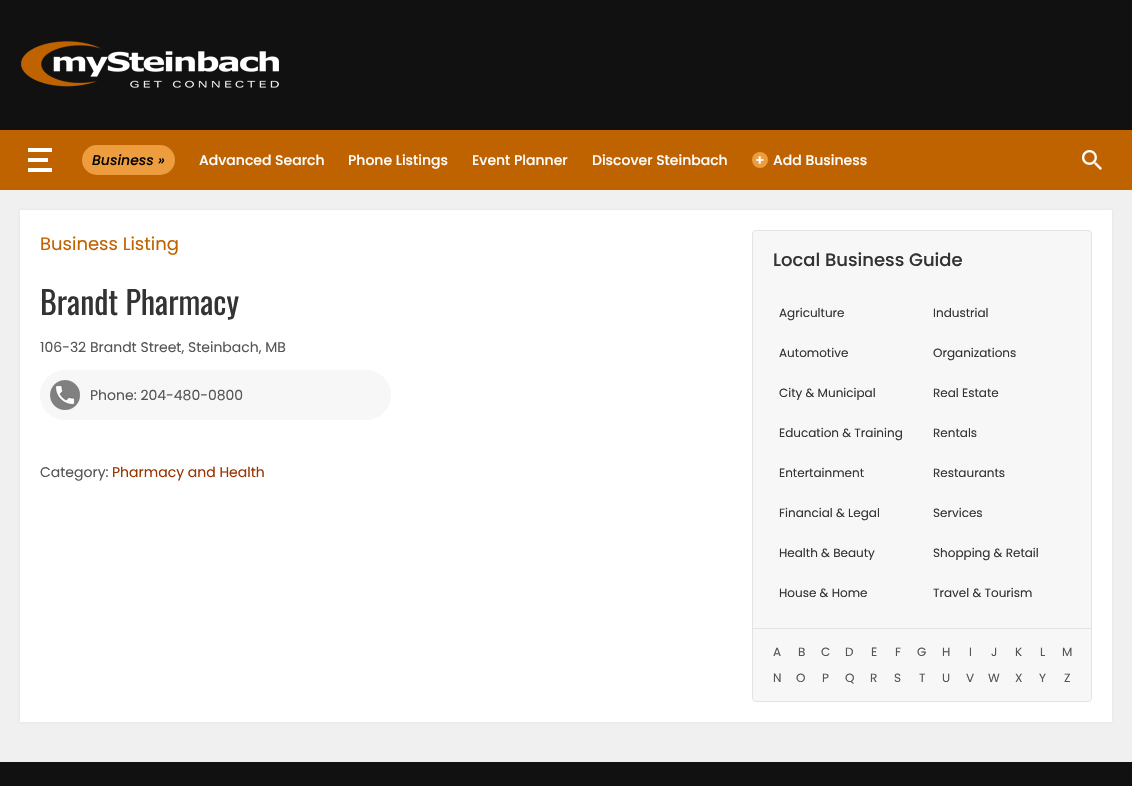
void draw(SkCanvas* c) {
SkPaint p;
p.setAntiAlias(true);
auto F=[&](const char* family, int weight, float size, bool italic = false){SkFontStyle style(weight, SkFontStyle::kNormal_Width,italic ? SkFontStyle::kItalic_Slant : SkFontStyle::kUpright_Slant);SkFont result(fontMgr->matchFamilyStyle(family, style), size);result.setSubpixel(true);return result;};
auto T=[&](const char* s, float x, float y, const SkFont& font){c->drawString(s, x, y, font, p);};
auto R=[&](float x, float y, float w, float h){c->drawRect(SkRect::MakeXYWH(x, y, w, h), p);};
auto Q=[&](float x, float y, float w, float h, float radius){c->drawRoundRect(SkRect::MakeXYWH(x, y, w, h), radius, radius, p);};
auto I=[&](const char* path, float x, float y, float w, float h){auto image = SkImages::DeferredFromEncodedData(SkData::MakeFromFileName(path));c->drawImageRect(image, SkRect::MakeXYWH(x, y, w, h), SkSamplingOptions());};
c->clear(0xff111111);
I("1.png",21,41,258,47);
p.setColor(0xffbf6200);
R(0,130,1132,60);
p.setColor(0xffffffff);
R(28,148,24,4);
R(28,158,20,4);
R(28,168,24,4);
p.setColor(0xffed9c3e);
Q(82,145,93,30,15);
auto f1 = F("Poppins",500,14,true);
p.setColor(0xff000000);
T("Business »",92,165,f1);
auto f2 = F("Poppins",500,14);
p.setColor(0xffffffff);
T("Advanced Search",199,165,f2);
T("Phone Listings",348,165,f2);
T("Event Planner",472,165,f2);
T("Discover Steinbach",592,165,f2);
p.setColor(0xffed9c3e);
c->drawCircle(760,160,8,p);
auto f3 = F("Poppins",600,14);
p.setColor(0xffffffff);
T("+",755,165,f3);
T("Add Business",773,165,f2);
I("2.png",1082,150,20,20);
p.setColor(0xfff0f0f0);
R(0,190,1132,572);
p.setColor(0xffdedede);
p.setMaskFilter(SkMaskFilter::MakeBlur(kNormal_SkBlurStyle, 1));
c->drawRect(SkRect::MakeXYWH(20,210,1092,512),p);
p.setMaskFilter(nullptr);
p.setColor(0xffffffff);
R(20,210,1092,512);
auto f4 = F("Poppins",400,18);
p.setColor(0xffbf6200);
T("Business Listing",40,250,f4);
auto f5 = F("Oswald",400,32);
p.setColor(0xff333333);
T("Brandt Pharmacy",40,315,f5);
auto f6 = F("Poppins",400,14);
p.setColor(0xff555555);
T("106-32 Brandt Street, Steinbach, MB",40,352,f6);
p.setColor(0xfff7f7f7);
Q(40,370,351,50,25);
I("3.png",50,380,30,30);
p.setColor(0xff555555);
T("Phone: 204-480-0800",90,400,f6);
T("Category:",40,477,f6);
p.setColor(0xff993300);
T("Pharmacy and Health",112,477,f6);
p.setColor(0xfff7f7f7);
c->drawRoundRect(SkRect::MakeXYWH(752.5,230.5,339,471),3.5,3.5,p);
p.setStroke(true);
p.setStrokeWidth(1);
p.setColor(0xffe3e3e3);
c->drawRoundRect(SkRect::MakeXYWH(752.5,230.5,339,471),3.5,3.5,p);
auto f7 = F("Poppins",500,18);
p.setStroke(false);
p.setColor(0xff333333);
T("Local Business Guide",773,266,f7);
p.setColor(0xffe3e3e3);
R(753,628,338,1);
auto f8 = F("Poppins",400,12);
p.setColor(0xff333333);
T("Agriculture",779,317,f8);
T("Automotive",779,357,f8);
T("City & Municipal",779,397,f8);
T("Education & Training",779,437,f8);
T("Entertainment",779,477,f8);
T("Financial & Legal",779,517,f8);
T("Health & Beauty",779,557,f8);
T("House & Home",779,597,f8);
T("Industrial",933,317,f8);
T("Organizations",933,357,f8);
T("Real Estate",933,397,f8);
T("Rentals",933,437,f8);
T("Restaurants",933,477,f8);
T("Services",933,517,f8);
T("Shopping & Retail",933,557,f8);
T("Travel & Tourism",933,597,f8);
p.setColor(0xff555555);
T("A",773,656,f8);
T("B",798,656,f8);
T("C",821,656,f8);
T("D",845,656,f8);
T("E",871,656,f8);
T("F",895,656,f8);
T("G",917,656,f8);
T("H",942,656,f8);
T("I",969,656,f8);
T("J",991,656,f8);
T("K",1015,656,f8);
T("L",1040,656,f8);
T("M",1062,656,f8);
T("N",773,682,f8);
T("O",796,682,f8);
T("P",822,682,f8);
T("Q",845,682,f8);
T("R",870,682,f8);
T("S",894,682,f8);
T("T",919,682,f8);
T("U",942,682,f8);
T("V",966,682,f8);
T("W",988,682,f8);
T("X",1015,682,f8);
T("Y",1039,682,f8);
T("Z",1064,682,f8);
}
